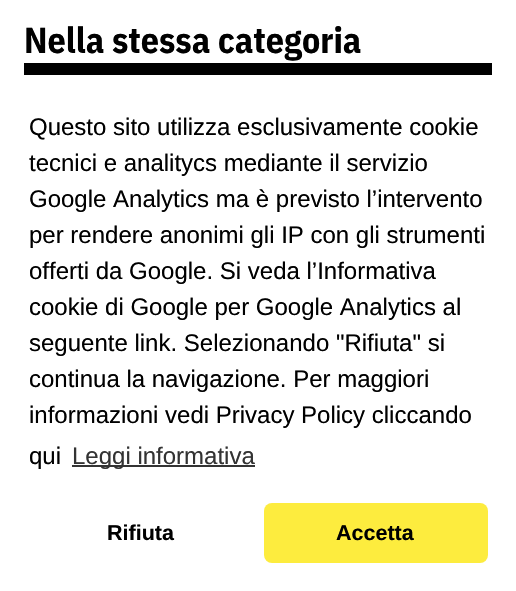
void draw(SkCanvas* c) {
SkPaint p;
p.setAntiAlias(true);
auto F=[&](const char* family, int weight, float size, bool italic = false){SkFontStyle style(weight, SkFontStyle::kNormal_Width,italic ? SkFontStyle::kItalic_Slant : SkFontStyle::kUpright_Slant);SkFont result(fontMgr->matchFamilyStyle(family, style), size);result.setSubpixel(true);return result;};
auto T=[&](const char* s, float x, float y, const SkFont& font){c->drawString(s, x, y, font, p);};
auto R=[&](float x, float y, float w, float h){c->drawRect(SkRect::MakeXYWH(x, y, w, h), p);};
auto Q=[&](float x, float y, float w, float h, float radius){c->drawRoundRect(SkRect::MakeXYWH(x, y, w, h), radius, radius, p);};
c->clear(0xffffffff);
p.setColor(0xff000000);
R(24,63,468,12);
auto f1 = F("IBM Plex Sans Condensed",700,36);
T("Nella stessa categoria",24,53,f1);
auto f2 = F("Liberation Sans",400,24);
T("Questo sito utilizza esclusivamente cookie",29,135,f2);
T("tecnici e analitycs mediante il servizio",29,171,f2);
T("Google Analytics ma è previsto l’intervento",29,207,f2);
T("per rendere anonimi gli IP con gli strumenti",29,243,f2);
T("offerti da Google. Si veda l’Informativa",29,279,f2);
T("cookie di Google per Google Analytics al",29,315,f2);
T("seguente link. Selezionando \"Rifiuta\" si",29,351,f2);
T("continua la navigazione. Per maggiori",29,387,f2);
T("informazioni vedi Privacy Policy cliccando",29,423,f2);
T("qui",29,464,f2);
p.setColor(0xff333333);
R(72,465,183,2);
T("Leggi informativa",72,464,f2);
auto f3 = F("Liberation Sans",700,21.5);
p.setColor(0xff000000);
T("Rifiuta",107,540,f3);
p.setColor(0xfffdec3e);
Q(264,503,224,60,8);
p.setColor(0xff000000);
T("Accetta",336,540,f3);
}
